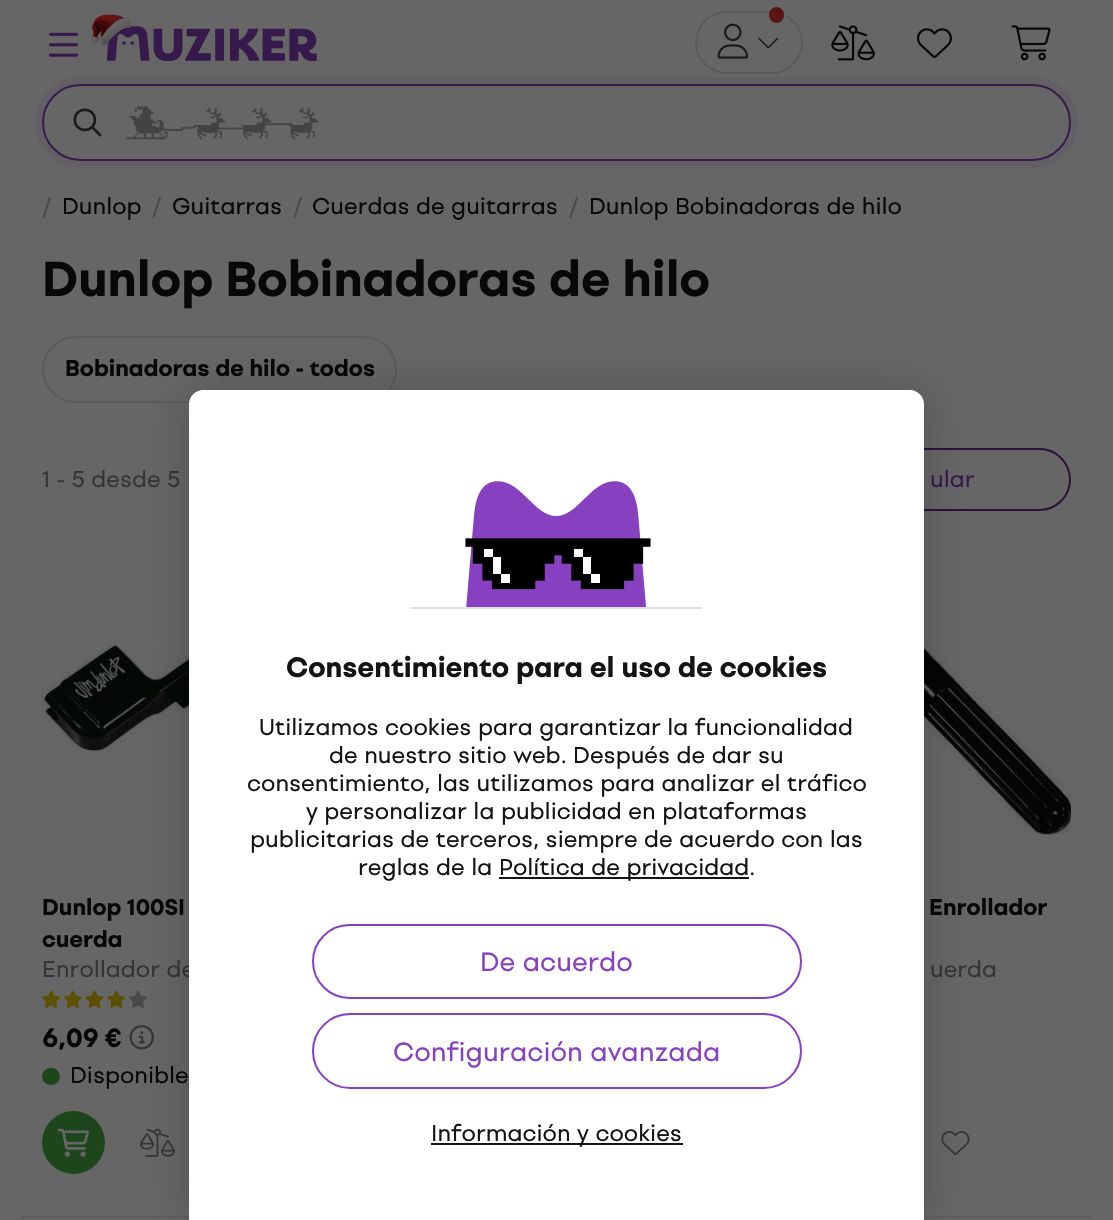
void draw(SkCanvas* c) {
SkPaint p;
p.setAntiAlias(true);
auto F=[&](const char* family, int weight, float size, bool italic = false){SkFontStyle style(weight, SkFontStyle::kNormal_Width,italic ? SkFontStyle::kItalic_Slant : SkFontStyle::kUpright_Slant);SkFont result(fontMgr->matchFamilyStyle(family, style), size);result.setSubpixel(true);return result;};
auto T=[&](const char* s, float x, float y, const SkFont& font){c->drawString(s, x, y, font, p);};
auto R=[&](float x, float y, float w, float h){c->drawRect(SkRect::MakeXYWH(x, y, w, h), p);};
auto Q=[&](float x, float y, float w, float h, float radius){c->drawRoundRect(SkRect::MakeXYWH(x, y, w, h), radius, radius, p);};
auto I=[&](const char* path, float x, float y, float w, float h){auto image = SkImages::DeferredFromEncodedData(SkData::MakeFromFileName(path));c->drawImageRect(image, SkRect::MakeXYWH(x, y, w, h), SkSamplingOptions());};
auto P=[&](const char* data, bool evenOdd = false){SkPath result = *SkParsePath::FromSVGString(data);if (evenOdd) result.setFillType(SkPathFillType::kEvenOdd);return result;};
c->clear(0xff666666);
I("1.png",49,32,30,25);
I("3.png",107,26,210,35);
I("2.png",90,14,41,32);
p.setStroke(true);
p.setStrokeWidth(2);
p.setColor(0xff5a5a59);
c->drawRoundRect(SkRect::MakeXYWH(696,12,106,61),30.5,30.5,p);
p.setStroke(false);
p.setColor(0xff581511);
c->drawRoundRect(SkRect::MakeXYWH(768,6,17,18),8.5,8.5,p);
p.setStroke(true);
p.setColor(0xff666666);
c->drawRoundRect(SkRect::MakeXYWH(768,6,17,18),8.5,8.5,p);
I("4.png",717,23,32,36);
I("5.png",758,37,21,12);
I("6.png",831,25,44,36);
I("7.png",917,28,35,31);
I("8.png",1011,25,40,36);
p.setStrokeWidth(7);
p.setColor(0xff626064);
c->drawRoundRect(SkRect::MakeXYWH(38.5,80.5,1036,84),42,42,p);
I("9.png",126,106,193,34);
p.setStrokeWidth(2);
p.setColor(0xff361a4c);
c->drawRoundRect(SkRect::MakeXYWH(43,85,1027,75),37.5,37.5,p);
I("10.png",73,108,29,29);
auto f1 = F("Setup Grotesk",400,22.75);
p.setStroke(false);
p.setColor(0xff4a4949);
T("/",42,214,f1);
p.setColor(0xff080808);
T("Dunlop",62,214,f1);
p.setColor(0xff4a4949);
T("/",152,214,f1);
p.setColor(0xff080808);
T("Guitarras",172,214,f1);
p.setColor(0xff4a4949);
T("/",293,214,f1);
p.setColor(0xff080808);
T("Cuerdas de guitarras",312,214,f1);
p.setColor(0xff4a4949);
T("/",569,214,f1);
p.setColor(0xff080808);
T("Dunlop Bobinadoras de hilo",589,214,f1);
auto f2 = F("Setup Grotesk",700,49);
T("Dunlop Bobinadoras de hilo",42,296,f2);
p.setStroke(true);
p.setColor(0xff5a5a59);
c->drawRoundRect(SkRect::MakeXYWH(43,337,353,65),32.5,32.5,p);
auto f3 = F("Setup Grotesk",700,22.75);
p.setStroke(false);
p.setColor(0xff080808);
T("Bobinadoras de hilo - todos",65,376,f3);
p.setColor(0xff353534);
T("1 - 5 desde 5",42,487,f1);
p.setStroke(true);
p.setColor(0xff291339);
c->drawRoundRect(SkRect::MakeXYWH(687,449,383,61),30.5,30.5,p);
p.setStroke(false);
p.setColor(0xff361a4c);
T("ular",930,487,f1);
p.setColor(0xff5e5e5e);
R(21,1216,168,2);
I("11.png",42,641,147,194);
p.setColor(0xff080808);
T("Dunlop 100SI",42,915,f3);
T("cuerda",42,947,f3);
p.setColor(0xff353534);
T("Enrollador de",42,977,f1);
I("12.png",42,991,105,19);
auto f4 = F("Setup Grotesk",700,26.25);
p.setColor(0xff080808);
T("6,09 €",42,1047,f4);
I("13.png",129,1025,25,25);
p.setColor(0xff1e461c);
Q(42,1068,18,17,8.5);
p.setColor(0xff080808);
T("Disponible",70,1083,f1);
p.setColor(0xff1e461c);
c->drawCircle(73.5,1142.5,31.5,p);
I("14.png",57,1128,32,29);
I("15.png",140,1128,35,29);
p.setColor(0xff5e5e5e);
R(924,1216,168,2);
I("16.png",924,643,147,192);
p.setColor(0xff080808);
T("Enrollador",929,915,f3);
p.setColor(0xff353534);
T("uerda",930,977,f1);
I("17.png",941,1131,29,24);
p.setColor(0x33000000);
p.setMaskFilter(SkMaskFilter::MakeBlur(kNormal_SkBlurStyle, 22));
c->drawRoundRect(SkRect::MakeXYWH(189,392,735,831),14,14,p);
p.setMaskFilter(nullptr);
p.setColor(0xffffffff);
c->drawPath(P("M203 390h707c7.5 0 14 6.5 14 14v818h-735v-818c0-7.5 6.5-14 14-14z"),p);
p.setColor(0xffe0e0de);
R(411,607,291,2);
I("18.png",466,481,180,126);
I("19.png",465,538,186,52);
auto f5 = F("Setup Grotesk",700,28);
p.setColor(0xff141414);
T("Consentimiento para el uso de cookies",286,677,f5);
T("Utilizamos cookies para garantizar la funcionalidad",259,735,f1);
T("de nuestro sitio web. Después de dar su",329,763,f1);
T("consentimiento, las utilizamos para analizar el tráfico",247,791,f1);
T("y personalizar la publicidad en plataformas",306,819,f1);
T("publicitarias de terceros, siempre de acuerdo con las",250,847,f1);
T("reglas de la",358,875,f1);
R(499,877,250,2);
T("Política de privacidad.",499,875,f1);
p.setStroke(true);
p.setColor(0xff8740bf);
c->drawRoundRect(SkRect::MakeXYWH(313,925,488,73),36.5,36.5,p);
auto f6 = F("Setup Grotesk",400,26.25);
p.setStroke(false);
T("De acuerdo",480,971,f6);
p.setStroke(true);
c->drawRoundRect(SkRect::MakeXYWH(313,1014,488,74),37,37,p);
p.setStroke(false);
T("Configuración avanzada",393,1061,f6);
p.setColor(0xff141414);
R(431,1143,252,2);
T("Información y cookies",431,1141,f1);
}
